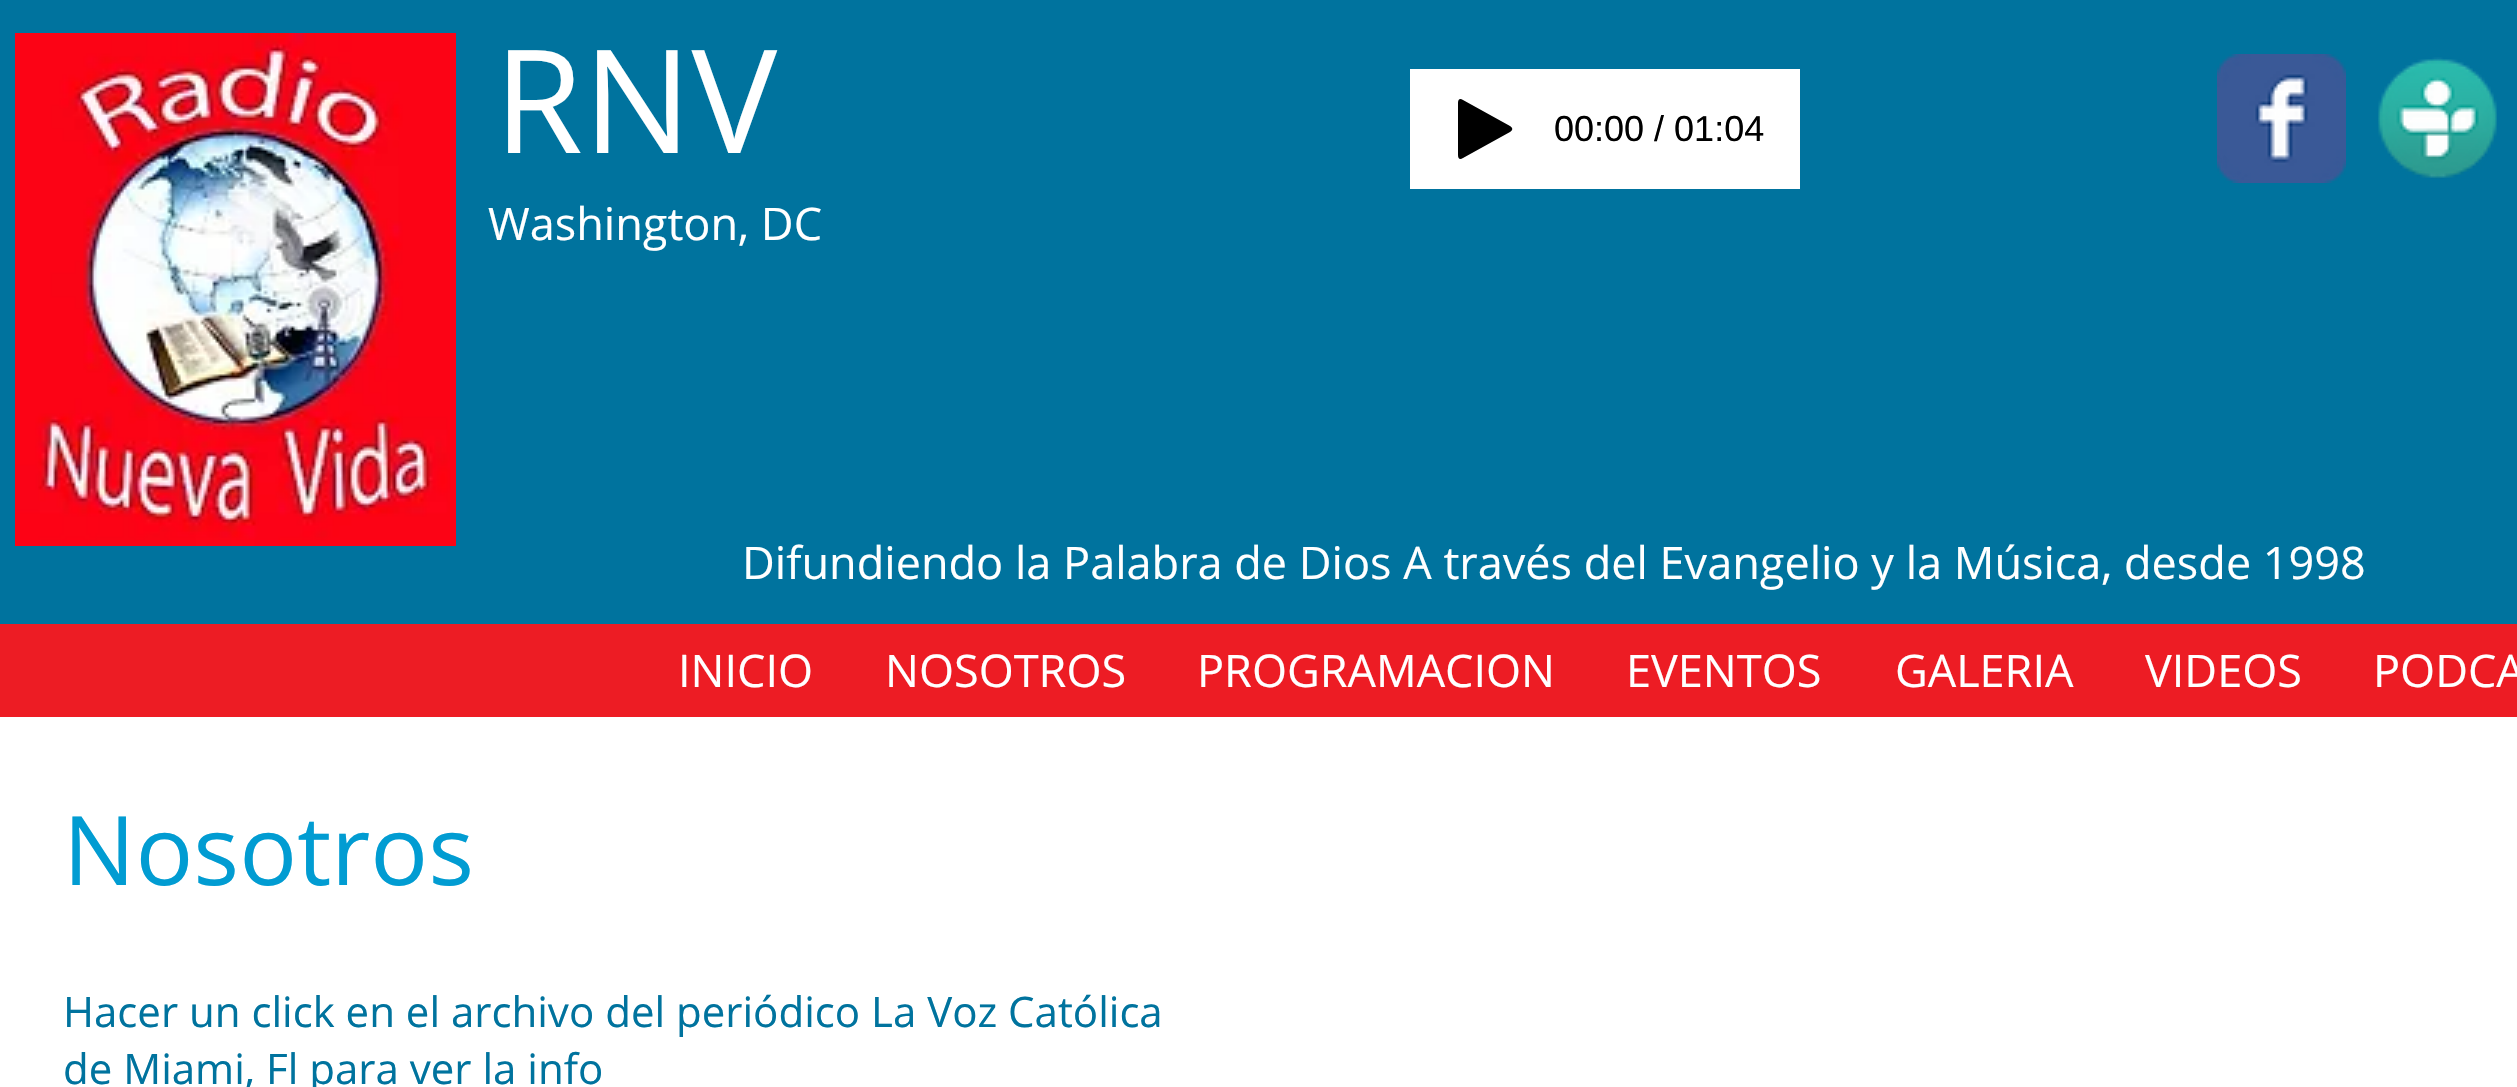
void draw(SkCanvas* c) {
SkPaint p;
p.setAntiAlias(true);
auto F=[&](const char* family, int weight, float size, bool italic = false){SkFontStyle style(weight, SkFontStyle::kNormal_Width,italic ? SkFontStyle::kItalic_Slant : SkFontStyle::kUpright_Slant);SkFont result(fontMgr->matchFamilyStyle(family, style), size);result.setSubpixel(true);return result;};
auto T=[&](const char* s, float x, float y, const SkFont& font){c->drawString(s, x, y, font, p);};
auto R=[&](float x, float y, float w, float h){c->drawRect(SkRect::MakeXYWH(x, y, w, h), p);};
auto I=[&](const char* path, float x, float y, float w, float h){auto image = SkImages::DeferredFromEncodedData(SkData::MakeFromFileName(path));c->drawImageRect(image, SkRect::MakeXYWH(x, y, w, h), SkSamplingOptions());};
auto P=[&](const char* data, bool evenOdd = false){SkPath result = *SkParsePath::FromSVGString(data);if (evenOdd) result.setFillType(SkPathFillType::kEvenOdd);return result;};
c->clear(0xffed1c24);
p.setColor(0xff00739e);
R(0,0,2517,624);
I("1.png",15,33,441,513);
auto f1 = F("Open Sans",400,144);
p.setColor(0xffffffff);
T("RNV",494,153,f1);
R(1410,69,390,120);
p.setColor(0xff000000);
c->drawPath(P("M1510 126c3 2 3 4 0 6l-47 26c-3 2-5 1-5-3v-52c0-4 2-5 5-3z"),p);
auto f2 = F("Liberation Sans",400,36);
T("00:00 / 01:04",1554,141,f2);
I("2.png",2217,54,129,129);
I("3.png",2378,57,119,122);
auto f3 = F("Open Sans",400,45);
p.setColor(0xffffffff);
T("Washington, DC",488,240,f3);
T("Difundiendo la Palabra de Dios A través del Evangelio y la Música, desde 1998",742,579,f3);
T("INICIO",678,687,f3);
T("NOSOTROS",885,687,f3);
T("PROGRAMACION",1197,687,f3);
T("EVENTOS",1626,687,f3);
T("GALERIA",1895,687,f3);
T("VIDEOS",2145,687,f3);
T("PODCA",2373,687,f3);
R(0,717,2517,370);
auto f4 = F("Open Sans",400,96);
p.setColor(0xff019cd2);
T("Nosotros",63,885,f4);
auto f5 = F("Open Sans",400,42);
p.setColor(0xff00739e);
T("Hacer un click en el archivo del periódico La Voz Católica",63,1027,f5);
T("de Miami, Fl para ver la info",63,1084,f5);
}
